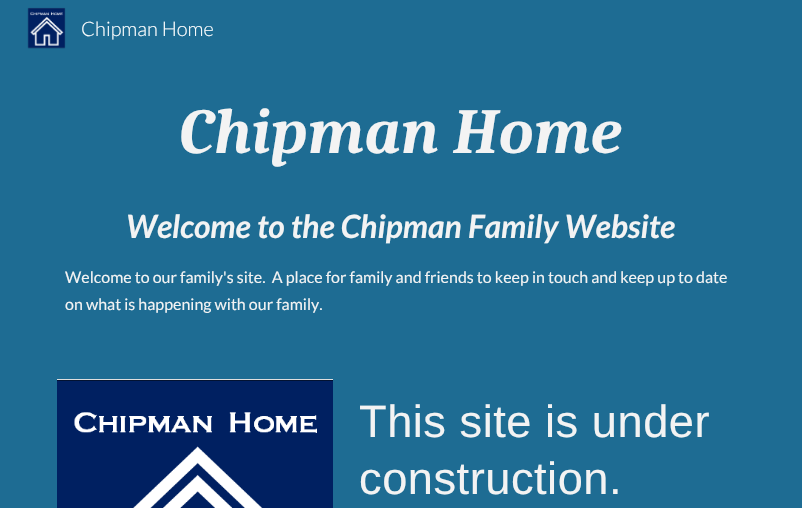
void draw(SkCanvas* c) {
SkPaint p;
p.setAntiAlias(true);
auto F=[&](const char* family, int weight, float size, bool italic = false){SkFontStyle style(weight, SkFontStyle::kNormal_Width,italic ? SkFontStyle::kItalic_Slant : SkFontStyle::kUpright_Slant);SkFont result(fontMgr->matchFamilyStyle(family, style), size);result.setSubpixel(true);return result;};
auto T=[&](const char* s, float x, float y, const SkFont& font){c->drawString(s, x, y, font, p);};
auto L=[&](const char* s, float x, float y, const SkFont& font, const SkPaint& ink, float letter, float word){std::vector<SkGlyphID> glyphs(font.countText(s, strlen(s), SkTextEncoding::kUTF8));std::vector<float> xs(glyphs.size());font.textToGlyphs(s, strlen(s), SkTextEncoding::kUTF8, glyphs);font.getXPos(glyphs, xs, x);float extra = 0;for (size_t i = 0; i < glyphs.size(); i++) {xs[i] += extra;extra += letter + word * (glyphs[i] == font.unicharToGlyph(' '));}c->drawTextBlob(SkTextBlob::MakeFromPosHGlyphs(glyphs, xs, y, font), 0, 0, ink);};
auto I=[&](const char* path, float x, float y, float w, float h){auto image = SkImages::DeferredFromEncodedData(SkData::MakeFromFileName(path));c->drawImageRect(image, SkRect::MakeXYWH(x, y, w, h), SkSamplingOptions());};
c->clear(0xff1e6c93);
I("1.png",27,7,39,42);
auto f1 = F("Lato",300,20);
p.setColor(0xffffffff);
T("Chipman Home",81,36,f1);
auto f2 = F("Caladea",700,64,true);
p.setColor(0xfff3f3f3);
L("Chipman Home",179,153,f2,p,.5,0);
auto f3 = F("Lato",700,32,true);
T("Welcome to the Chipman Family Website",126,238,f3);
auto f4 = F("Lato",400,16);
T("Welcome to our family's site.  A place for family and friends to keep in touch and keep up to date",65,283,f4);
T("on what is happening with our family.",65,310,f4);
I("2.png",57,379,276,129);
auto f5 = F("Liberation Sans",400,45.25);
L("This site is under",359,437,f5,p,.5,0);
L("construction.",359,494,f5,p,.5,0);
}
